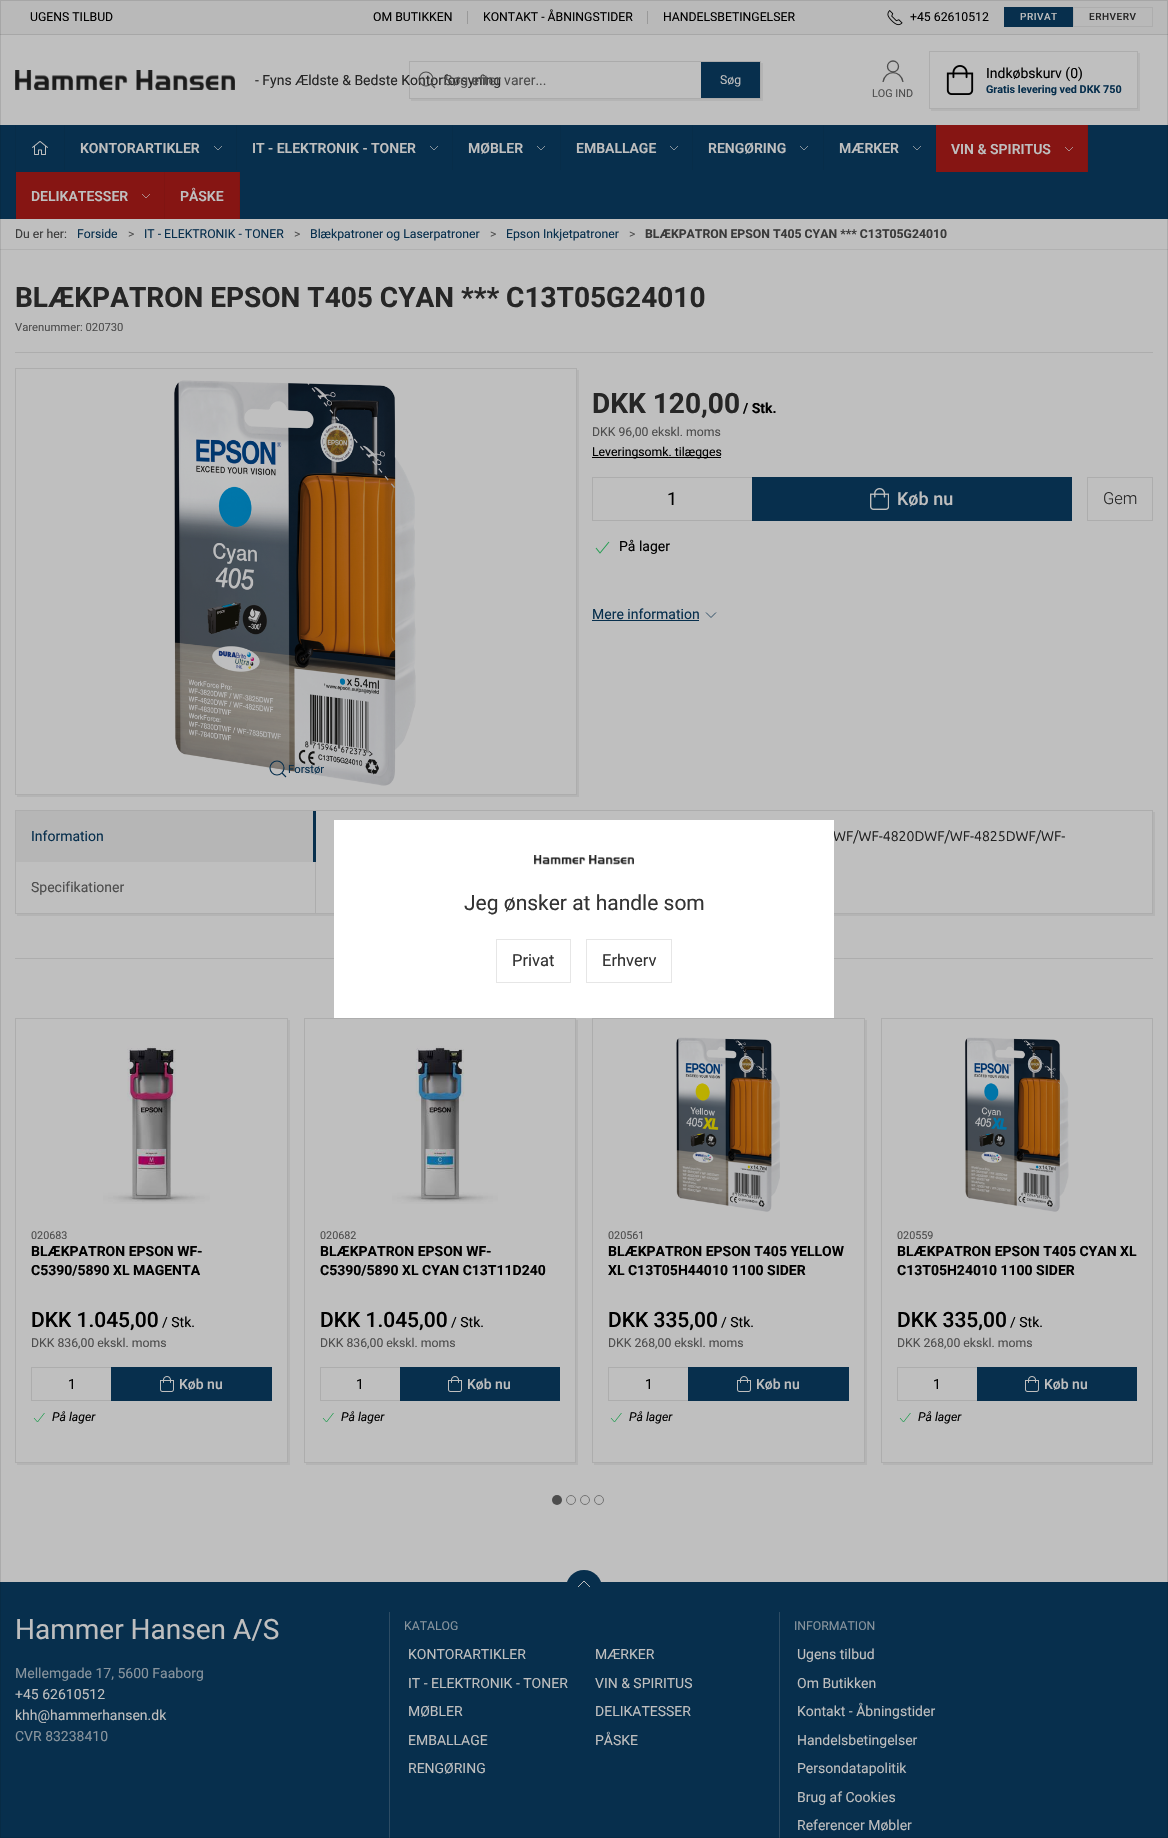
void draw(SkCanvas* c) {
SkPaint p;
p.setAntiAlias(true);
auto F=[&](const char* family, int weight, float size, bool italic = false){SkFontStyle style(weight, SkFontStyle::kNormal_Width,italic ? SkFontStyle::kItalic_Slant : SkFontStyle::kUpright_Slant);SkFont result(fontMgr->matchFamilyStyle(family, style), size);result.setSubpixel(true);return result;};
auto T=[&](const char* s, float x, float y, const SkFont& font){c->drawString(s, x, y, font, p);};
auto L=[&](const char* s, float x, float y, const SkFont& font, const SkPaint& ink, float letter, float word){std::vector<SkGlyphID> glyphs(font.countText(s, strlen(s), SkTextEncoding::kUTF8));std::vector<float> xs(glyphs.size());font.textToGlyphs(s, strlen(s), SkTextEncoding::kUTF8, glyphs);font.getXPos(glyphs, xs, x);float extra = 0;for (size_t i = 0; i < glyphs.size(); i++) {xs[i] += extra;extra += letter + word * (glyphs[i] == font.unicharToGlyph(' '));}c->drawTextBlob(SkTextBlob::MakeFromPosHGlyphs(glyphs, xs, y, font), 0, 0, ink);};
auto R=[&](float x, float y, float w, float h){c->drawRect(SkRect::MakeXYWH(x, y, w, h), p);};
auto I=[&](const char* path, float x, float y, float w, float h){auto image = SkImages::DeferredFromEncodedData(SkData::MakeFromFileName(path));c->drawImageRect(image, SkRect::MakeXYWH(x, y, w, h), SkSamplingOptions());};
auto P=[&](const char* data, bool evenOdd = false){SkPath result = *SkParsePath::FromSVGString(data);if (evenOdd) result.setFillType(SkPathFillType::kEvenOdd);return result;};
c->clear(0xffbfbfbf);
p.setColor(0xffb6b6b6);
R(16,811,297,51);
p.setColor(0xffb9b9b9);
R(0,0,1168,34);
p.setColor(0xffa7a7a7);
R(0,34,1168,1);
auto f1 = F("Roboto",400,12.25);
p.setColor(0xff000000);
T("UGENS TILBUD",30,21,f1);
T("OM BUTIKKEN",373,21,f1);
p.setColor(0xff999999);
R(467,11,1,13);
p.setColor(0xff000000);
T("KONTAKT - ÅBNINGSTIDER",483,21,f1);
p.setColor(0xff999999);
R(647,11,1,13);
p.setColor(0xff000000);
T("HANDELSBETINGELSER",663,21,f1);
I("1.png",887,10,16,16);
T("+45 62610512",910,21,f1);
p.setColor(0xff072f4d);
R(1004,7,69,20);
auto f2 = F("Roboto",500,10);
p.setColor(0xffbfbfbf);
L("PRIVAT",1020,20,f2,p,.5,0);
p.setStroke(true);
p.setStrokeWidth(1);
p.setColor(0xffadadad);
c->drawRect(SkRect::MakeXYWH(1073.5,7.5,79,19),p);
p.setStroke(false);
p.setColor(0xff262626);
L("ERHVERV",1089,20,f2,p,.5,0);
I("2.png",15,70,220,20);
auto f3 = F("Roboto",400,14);
T("- Fyns Ældste & Bedste Kontorforsyning",255,85,f3);
p.setColor(0xffb4b4b4);
c->drawPath(P("M411 99v2h352v-38h-2v36z"),p);
p.setStroke(true);
p.setColor(0x1a000000);
c->drawRect(SkRect::MakeXYWH(409.5,61.5,351,37),p);
p.setStrokeWidth(1.1);
p.setColor(0xff4d4d4d);
c->drawCircle(426,79,7,p);
c->drawPath(P("M431 84l4 4z"),p);
p.setStroke(false);
T("Søg efter varer...",444,85,f3);
p.setColor(0xff072f4d);
R(701,62,59,36);
p.setColor(0xffbfbfbf);
T("Søg",720,84,f1);
p.setStroke(true);
p.setStrokeWidth(1.3);
p.setColor(0xff4d4d4d);
c->drawCircle(893,66.5,5.5,p);
c->drawPath(P("M883 82c2-12.5 18-12.5 20 0"),p);
auto f4 = F("Roboto",400,10.8);
p.setStroke(false);
T("LOG IND",872,97,f4);
p.setColor(0xffb4b4b4);
c->drawPath(P("M931 109v2h209v-58h-2v56z"),p);
p.setStroke(true);
p.setStrokeWidth(1);
p.setColor(0xffadadad);
c->drawRect(SkRect::MakeXYWH(929.5,51.5,208,57),p);
I("3.png",946,65,28,30);
p.setStroke(false);
p.setColor(0xff000000);
T("Indkøbskurv (0)",986,78,f3);
auto f5 = F("Roboto",700,10.8);
p.setColor(0xff072f4d);
T("Gratis levering ved DKK 750",986,93,f5);
R(0,125,1168,94);
p.setColor(0xff072d49);
R(15,125,1,94);
R(64,125,1,45);
I("4.png",32,141,16,14);
R(236,125,1,45);
auto f6 = F("Roboto",600,14);
p.setColor(0xffbfbfbf);
T("KONTORARTIKLER",80,153,f6);
p.setStroke(true);
p.setStrokeWidth(.7);
c->drawPath(P("M222 146l-4 4l-4-4"),p);
p.setStroke(false);
p.setColor(0xff072d49);
R(452,125,1,45);
p.setColor(0xffbfbfbf);
T("IT - ELEKTRONIK - TONER",252,153,f6);
p.setStroke(true);
c->drawPath(P("M438 146l-4 4l-4-4"),p);
p.setStroke(false);
p.setColor(0xff072d49);
R(560,125,1,45);
p.setColor(0xffbfbfbf);
T("MØBLER",468,153,f6);
p.setStroke(true);
c->drawPath(P("M545 146l-4 4l-4-4"),p);
p.setStroke(false);
p.setColor(0xff072d49);
R(692,125,1,45);
p.setColor(0xffbfbfbf);
T("EMBALLAGE",576,153,f6);
p.setStroke(true);
c->drawPath(P("M678 146l-4 4l-4-4"),p);
p.setStroke(false);
p.setColor(0xff072d49);
R(823,125,1,45);
p.setColor(0xffbfbfbf);
T("RENGØRING",708,153,f6);
p.setStroke(true);
c->drawPath(P("M808 146l-4 4l-4-4"),p);
p.setStroke(false);
p.setColor(0xff072d49);
R(935,125,1,45);
p.setColor(0xffbfbfbf);
T("MÆRKER",839,153,f6);
p.setStroke(true);
c->drawPath(P("M921 146l-4 4l-4-4"),p);
p.setStroke(false);
p.setColor(0xff861513);
R(936,125,151,47);
p.setColor(0xff801412);
R(1087,125,1,47);
p.setColor(0xffbfbfbf);
T("VIN & SPIRITUS",951,154,f6);
p.setStroke(true);
c->drawPath(P("M1073 147l-4 4l-4-4"),p);
p.setStroke(false);
p.setColor(0xff861513);
R(16,172,148,47);
p.setColor(0xff801412);
R(164,172,1,47);
p.setColor(0xffbfbfbf);
T("DELIKATESSER",31,201,f6);
p.setStroke(true);
c->drawPath(P("M150 194l-4 4l-4-4"),p);
p.setStroke(false);
p.setColor(0xff861513);
R(165,172,74,47);
p.setColor(0xff801412);
R(239,172,1,47);
p.setColor(0xffbfbfbf);
T("PÅSKE",180,201,f6);
p.setColor(0xffb1b1b1);
R(0,249,1168,1);
p.setColor(0xff3a3a3a);
T("Du er her:",15,238,f1);
p.setColor(0xff072f4d);
T("Forside",77,238,f1);
p.setColor(0xff4d4d4d);
T(">",128,238,f1);
p.setColor(0xff072f4d);
T("IT - ELEKTRONIK - TONER",144,238,f1);
p.setColor(0xff4d4d4d);
T(">",294,238,f1);
p.setColor(0xff072f4d);
T("Blækpatroner og Laserpatroner",310,238,f1);
p.setColor(0xff4d4d4d);
T(">",490,238,f1);
p.setColor(0xff072f4d);
T("Epson Inkjetpatroner",506,238,f1);
p.setColor(0xff4d4d4d);
T(">",629,238,f1);
auto f7 = F("Roboto",700,12.25);
p.setColor(0xff3a3a3a);
T("BLÆKPATRON EPSON T405 CYAN *** C13T05G24010",645,238,f7);
auto f8 = F("Roboto",700,28);
p.setColor(0xff262626);
T("BLÆKPATRON EPSON T405 CYAN *** C13T05G24010",15,307,f8);
auto f9 = F("Roboto",400,11.25);
p.setColor(0xff4d4d4d);
T("Varenummer: 020730",15,331,f9);
p.setColor(0xffadadad);
R(15,352,1138,1);
p.setColor(0xff262626);
T("DKK 120,00",592,413,f8);
auto f10 = F("Roboto",700,14);
p.setColor(0xff000000);
T("/ Stk.",743,413,f10);
p.setColor(0xff4d4d4d);
T("DKK 96,00 ekskl. moms",592,436,f1);
p.setColor(0xff000000);
R(592,457,129,1);
T("Leveringsomk. tilægges",592,456,f1);
p.setStroke(true);
p.setStrokeWidth(1);
p.setColor(0xffadadad);
c->drawRect(SkRect::MakeXYWH(592.5,477.5,160,43),p);
auto f11 = F("Roboto",400,18);
p.setStroke(false);
p.setColor(0xff000000);
T("1",667,505,f11);
p.setColor(0xff072f4d);
R(752,477,320,44);
I("5.png",870,488,19,22);
auto f12 = F("Roboto",500,18);
p.setColor(0xffbfbfbf);
T("Køb nu",897,505,f12);
p.setStroke(true);
p.setColor(0xffadadad);
c->drawRect(SkRect::MakeXYWH(1087.5,477.5,65,43),p);
auto f13 = F("Roboto",300,16.5);
p.setStroke(false);
p.setColor(0xff262626);
T("Gem",1103,504,f13);
p.setStroke(true);
p.setStrokeWidth(1.1);
p.setColor(0xff269e53);
c->drawPath(P("M596 548l4 5l9-11"),p);
p.setStroke(false);
p.setColor(0xff000000);
T("På lager",619,551,f3);
p.setColor(0xff072f4d);
T("Mere information",592,619,f3);
R(592,620,107,1);
p.setStroke(true);
p.setStrokeWidth(.8);
c->drawPath(P("M716 612.5l-5 5l-5-5"),p);
p.setStroke(false);
p.setColor(0xffb4b4b4);
c->drawPath(P("M17 795v2h562v-427h-2v425z"),p);
p.setStroke(true);
p.setStrokeWidth(1);
p.setColor(0xffadadad);
c->drawRect(SkRect::MakeXYWH(15.5,368.5,561,426),p);
I("6.png",174,380,242,406);
p.setStrokeWidth(1.1);
p.setColor(0xff072f4d);
c->drawCircle(277,768,7,p);
c->drawPath(P("M282 773l4 4z"),p);
p.setStroke(false);
T("Forstør",288,773,f9);
p.setColor(0xffb4b4b4);
c->drawPath(P("M17 914v2h1138v-104h-2v102z"),p);
p.setStroke(true);
p.setStrokeWidth(1);
p.setColor(0xffadadad);
c->drawRect(SkRect::MakeXYWH(15.5,810.5,1137,103),p);
p.setStroke(false);
p.setColor(0xff072f4d);
R(313,811,3,51);
T("Information",31,841,f3);
p.setColor(0xff4d4d4d);
T("Specifikationer",31,892,f3);
p.setColor(0xffadadad);
R(315,862,1,51);
auto f14 = F("Ubuntu",400,14);
p.setColor(0xff202020);
T("WF/WF-4820DWF/WF-4825DWF/WF-",833,841,f14);
p.setColor(0xffadadad);
R(15,958,319,1);
R(834,958,319,1);
p.setColor(0xffb4b4b4);
c->drawPath(P("M17 1463v2h273v-445h-2v443z"),p);
p.setStroke(true);
p.setColor(0xffadadad);
c->drawRect(SkRect::MakeXYWH(15.5,1018.5,272,444),p);
I("7.png",103,1046,107,158);
p.setStroke(false);
p.setColor(0xff4d4d4d);
T("020683",31,1239,f4);
p.setColor(0xff000000);
T("BLÆKPATRON EPSON WF-",31,1256,f10);
T("C5390/5890 XL MAGENTA",31,1275,f10);
auto f15 = F("Roboto",500,21);
T("DKK 1.045,00",31,1327,f15);
T("/ Stk.",162,1327,f3);
p.setColor(0xff4d4d4d);
T("DKK 836,00 ekskl. moms",31,1347,f1);
p.setStroke(true);
p.setColor(0xffadadad);
c->drawRect(SkRect::MakeXYWH(31.5,1367.5,80,33),p);
p.setStroke(false);
p.setColor(0xff000000);
T("1",68,1389,f3);
p.setColor(0xff072f4d);
R(111,1367,161,34);
I("8.png",160,1376,14,16);
auto f16 = F("Roboto",500,14);
p.setColor(0xffbfbfbf);
T("Køb nu",179,1389,f16);
p.setStroke(true);
p.setStrokeWidth(.9);
p.setColor(0xff269e53);
c->drawPath(P("M34 1418l3.5 4l7-9"),p);
auto f17 = F("Roboto",400,12.25,true);
p.setStroke(false);
p.setColor(0xff000000);
T("På lager",52,1421,f17);
p.setColor(0xffb4b4b4);
c->drawPath(P("M306 1463v2h272v-445h-2v443z"),p);
p.setStroke(true);
p.setStrokeWidth(1);
p.setColor(0xffadadad);
c->drawRect(SkRect::MakeXYWH(304.5,1018.5,271,444),p);
I("9.png",392,1046,106,158);
p.setStroke(false);
p.setColor(0xff4d4d4d);
T("020682",320,1239,f4);
p.setColor(0xff000000);
T("BLÆKPATRON EPSON WF-",320,1256,f10);
T("C5390/5890 XL CYAN C13T11D240",320,1275,f10);
T("DKK 1.045,00",320,1327,f15);
T("/ Stk.",451,1327,f3);
p.setColor(0xff4d4d4d);
T("DKK 836,00 ekskl. moms",320,1347,f1);
p.setStroke(true);
p.setColor(0xffadadad);
c->drawRect(SkRect::MakeXYWH(320.5,1367.5,80,33),p);
p.setStroke(false);
p.setColor(0xff000000);
T("1",356,1389,f3);
p.setColor(0xff072f4d);
R(400,1367,160,34);
I("8.png",448,1376,14,16);
p.setColor(0xffbfbfbf);
T("Køb nu",467,1389,f16);
p.setStroke(true);
p.setStrokeWidth(.9);
p.setColor(0xff269e53);
c->drawPath(P("M323 1418l3.5 4l7-9"),p);
p.setStroke(false);
p.setColor(0xff000000);
T("På lager",341,1421,f17);
p.setColor(0xffb4b4b4);
c->drawPath(P("M594 1463v2h273v-445h-2v443z"),p);
p.setStroke(true);
p.setStrokeWidth(1);
p.setColor(0xffadadad);
c->drawRect(SkRect::MakeXYWH(592.5,1018.5,272,444),p);
I("10.png",676,1037,104,175);
p.setStroke(false);
p.setColor(0xff4d4d4d);
T("020561",608,1239,f4);
p.setColor(0xff000000);
T("BLÆKPATRON EPSON T405 YELLOW",608,1256,f10);
T("XL C13T05H44010 1100 SIDER",608,1275,f10);
T("DKK 335,00",608,1327,f15);
T("/ Stk.",721,1327,f3);
p.setColor(0xff4d4d4d);
T("DKK 268,00 ekskl. moms",608,1347,f1);
p.setStroke(true);
p.setColor(0xffadadad);
c->drawRect(SkRect::MakeXYWH(608.5,1367.5,80,33),p);
p.setStroke(false);
p.setColor(0xff000000);
T("1",645,1389,f3);
p.setColor(0xff072f4d);
R(688,1367,161,34);
I("8.png",737,1376,14,16);
p.setColor(0xffbfbfbf);
T("Køb nu",756,1389,f16);
p.setStroke(true);
p.setStrokeWidth(.9);
p.setColor(0xff269e53);
c->drawPath(P("M611 1418l3.5 4l7-9"),p);
p.setStroke(false);
p.setColor(0xff000000);
T("På lager",629,1421,f17);
c->save();
c->clipRect(SkRect::MakeXYWH(15,1003,1138,475));
p.setColor(0xffb4b4b4);
c->drawPath(P("M883 1463v2h272v-445h-2v443z"),p);
c->restore();
p.setStroke(true);
p.setStrokeWidth(1);
p.setColor(0xffadadad);
c->drawRect(SkRect::MakeXYWH(881.5,1018.5,271,444),p);
I("11.png",965,1037,104,175);
p.setStroke(false);
p.setColor(0xff4d4d4d);
T("020559",897,1239,f4);
p.setColor(0xff000000);
T("BLÆKPATRON EPSON T405 CYAN XL",897,1256,f10);
T("C13T05H24010 1100 SIDER",897,1275,f10);
T("DKK 335,00",897,1327,f15);
T("/ Stk.",1010,1327,f3);
p.setColor(0xff4d4d4d);
T("DKK 268,00 ekskl. moms",897,1347,f1);
p.setStroke(true);
p.setColor(0xffadadad);
c->drawRect(SkRect::MakeXYWH(897.5,1367.5,80,33),p);
p.setStroke(false);
p.setColor(0xff000000);
T("1",933,1389,f3);
p.setColor(0xff072f4d);
R(977,1367,160,34);
I("8.png",1025,1376,14,16);
p.setColor(0xffbfbfbf);
T("Køb nu",1044,1389,f16);
p.setStroke(true);
p.setStrokeWidth(.9);
p.setColor(0xff269e53);
c->drawPath(P("M900 1418l3.5 4l7-9"),p);
p.setStroke(false);
p.setColor(0xff000000);
T("På lager",918,1421,f17);
p.setColor(0xff4d4d4d);
c->drawCircle(557,1500,5,p);
p.setStroke(true);
p.setStrokeWidth(1);
p.setColor(0xff737373);
c->drawCircle(571,1500,4.5,p);
c->drawCircle(585,1500,4.5,p);
c->drawCircle(599,1500,4.5,p);
p.setStroke(false);
p.setColor(0xff072f4d);
R(0,1582,1168,256);
c->drawCircle(584,1588,18,p);
p.setStroke(true);
p.setColor(0xffbfbfbf);
c->drawPath(P("M578 1587l6-6l6 6"),p);
p.setStroke(false);
p.setColor(0xff2c4c64);
R(389,1612,1,226);
R(779,1612,1,226);
p.setStroke(true);
p.setColor(0x1a000000);
c->drawRect(SkRect::MakeXYWH(.5,.5,1167,1837),p);
p.setStroke(false);
p.setColor(0xffffffff);
R(334,820,500,198);
I("12.png",534,855,100,10);
auto f18 = F("Roboto",400,21);
p.setColor(0xff333333);
T("Jeg ønsker at handle som",464,910,f18);
p.setStroke(true);
p.setColor(0xffe6e6e6);
c->drawRect(SkRect::MakeXYWH(496.5,939.5,74,43),p);
auto f19 = F("Roboto",400,16.5);
p.setStroke(false);
p.setColor(0xff333333);
T("Privat",512,966,f19);
p.setStroke(true);
p.setColor(0xffe6e6e6);
c->drawRect(SkRect::MakeXYWH(586.5,939.5,85,43),p);
p.setStroke(false);
p.setColor(0xff333333);
T("Erhverv",602,966,f19);
auto f20 = F("Roboto",400,28);
p.setColor(0xffbfbfbf);
T("Hammer Hansen A/S",15,1639,f20);
p.setColor(0xff88949d);
T("Mellemgade 17, 5600 Faaborg",15,1678,f3);
p.setColor(0xffbfbfbf);
T("+45 62610512",15,1699,f3);
T("khh@hammerhansen.dk",15,1720,f3);
p.setColor(0xff88949d);
T("CVR 83238410",15,1741,f3);
T("KATALOG",404,1630,f1);
p.setColor(0xffbfbfbf);
T("KONTORARTIKLER",408,1659,f3);
T("IT - ELEKTRONIK - TONER",408,1688,f3);
T("MØBLER",408,1716,f3);
T("EMBALLAGE",408,1745,f3);
T("RENGØRING",408,1773,f3);
T("MÆRKER",595,1659,f3);
T("VIN & SPIRITUS",595,1688,f3);
T("DELIKATESSER",595,1716,f3);
T("PÅSKE",595,1745,f3);
p.setColor(0xff88949d);
T("INFORMATION",794,1630,f1);
p.setColor(0xffbfbfbf);
T("Ugens tilbud",797,1659,f3);
T("Om Butikken",797,1688,f3);
T("Kontakt - Åbningstider",797,1716,f3);
T("Handelsbetingelser",797,1745,f3);
T("Persondatapolitik",797,1773,f3);
T("Brug af Cookies",797,1802,f3);
T("Referencer Møbler",797,1830,f3);
}
